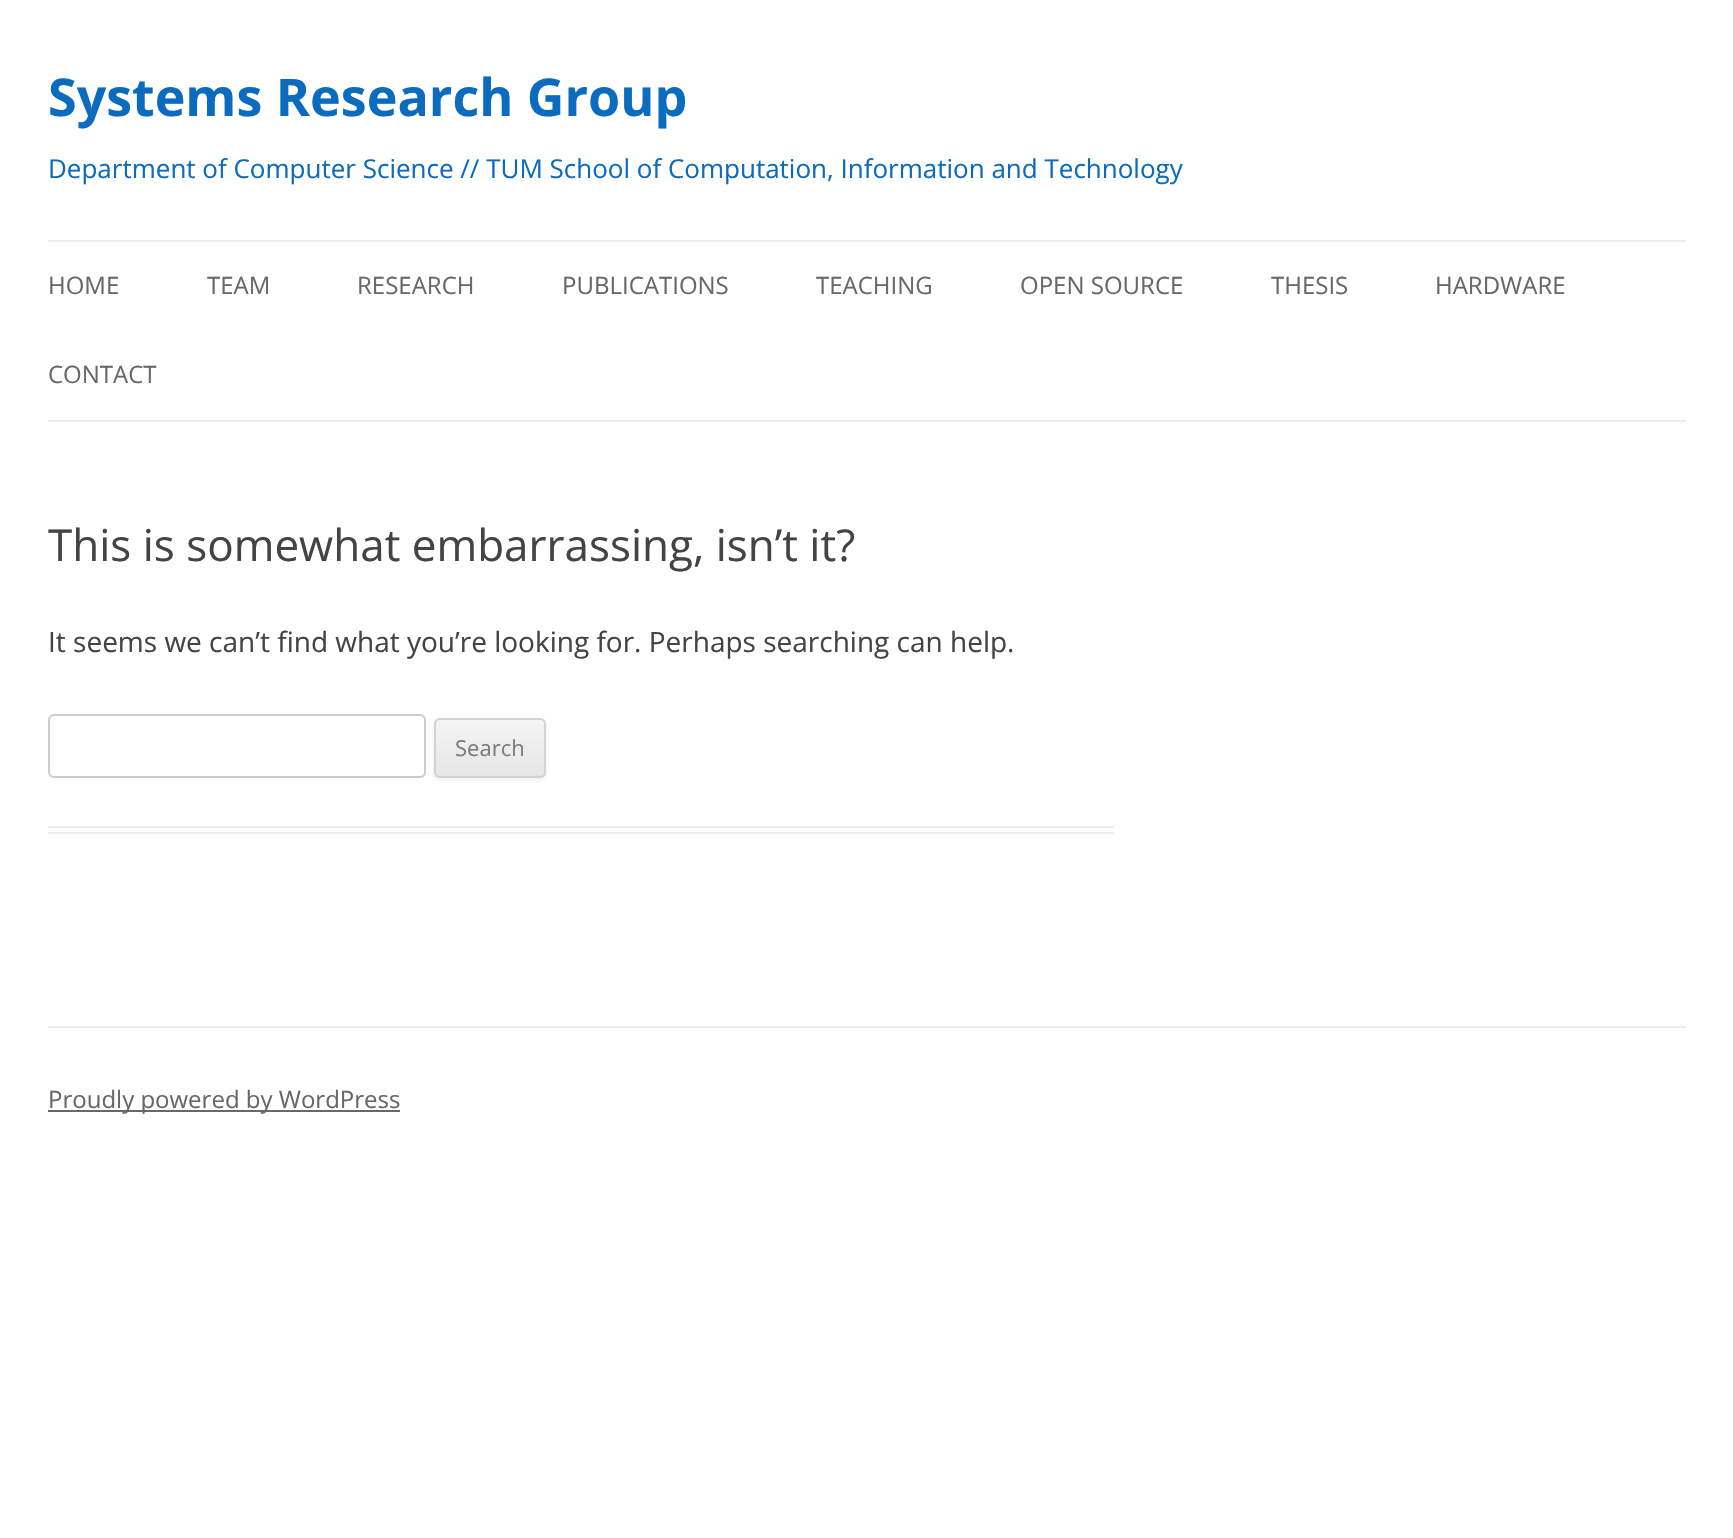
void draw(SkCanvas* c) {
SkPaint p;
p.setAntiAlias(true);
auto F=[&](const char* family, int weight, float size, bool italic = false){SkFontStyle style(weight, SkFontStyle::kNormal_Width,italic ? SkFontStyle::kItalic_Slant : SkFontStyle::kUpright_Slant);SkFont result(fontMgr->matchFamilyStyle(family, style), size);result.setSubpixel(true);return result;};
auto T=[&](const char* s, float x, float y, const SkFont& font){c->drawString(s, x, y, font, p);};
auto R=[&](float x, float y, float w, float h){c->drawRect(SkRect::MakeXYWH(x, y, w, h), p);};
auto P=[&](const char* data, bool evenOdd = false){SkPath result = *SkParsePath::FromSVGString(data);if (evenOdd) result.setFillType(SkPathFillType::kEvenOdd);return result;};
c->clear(0xffffffff);
auto f1 = F("Open Sans",700,52);
p.setColor(0xff0b6bbf);
T("Systems Research Group",48,116,f1);
auto f2 = F("Open Sans",400,26);
T("Department of Computer Science // TUM School of Computation, Information and Technology",48,178,f2);
p.setColor(0xffededed);
R(48,240,1638,2);
R(48,420,1638,2);
auto f3 = F("Open Sans",400,24);
p.setColor(0xff686868);
T("HOME",48,294,f3);
T("TEAM",207,294,f3);
T("RESEARCH",357,294,f3);
T("PUBLICATIONS",562,294,f3);
T("TEACHING",816,294,f3);
T("OPEN SOURCE",1020,294,f3);
T("THESIS",1271,294,f3);
T("HARDWARE",1435,294,f3);
T("CONTACT",48,383,f3);
p.setColor(0xffededed);
R(48,826,1066,2);
R(48,832,1066,2);
auto f4 = F("Open Sans",400,44);
p.setColor(0xff444444);
T("This is somewhat embarrassing, isn’t it?",48,561,f4);
auto f5 = F("Open Sans",400,28);
T("It seems we can’t find what you’re looking for. Perhaps searching can help.",48,652,f5);
p.setStroke(true);
p.setStrokeWidth(2);
p.setColor(0xffcccccc);
c->drawRoundRect(SkRect::MakeXYWH(49,715,376,62),5,5,p);
p.setStroke(false);
p.setColor(0x1a404040);
p.setMaskFilter(SkMaskFilter::MakeBlur(kNormal_SkBlurStyle, 2));
c->drawRoundRect(SkRect::MakeXYWH(434,720,112,60),6,6,p);
p.setMaskFilter(nullptr);
c->save();
c->clipPath(P("M440 718h100c3.5 0 6 2.5 6 6v48c0 3.5-2.5 6-6 6h-100c-3.5 0-6-2.5-6-6v-48c0-3.5 2.5-6 6-6z"),true);
{
const SkColor colors[] = {0xfff4f4f4,0xffe6e6e6};
const float stops[] = {0,1};
const SkPoint ends[] = {{490,720}, {490,776}};
p.setShader(SkGradientShader::MakeLinear(ends, colors, stops, 2, SkTileMode::kClamp));
p.setAlpha(255);
}
R(434,720,112,56);
c->restore();
p.setStroke(true);
p.setShader(nullptr);
p.setColor(0xffd2d2d2);
c->drawRoundRect(SkRect::MakeXYWH(435,719,110,58),5,5,p);
auto f6 = F("Open Sans",400,22);
p.setStroke(false);
p.setColor(0xff7c7c7c);
T("Search",455,756,f6);
p.setColor(0xffededed);
R(48,1026,1638,2);
p.setColor(0xff686868);
R(48,1110,352,2);
T("Proudly powered by WordPress",48,1108,f3);
}
